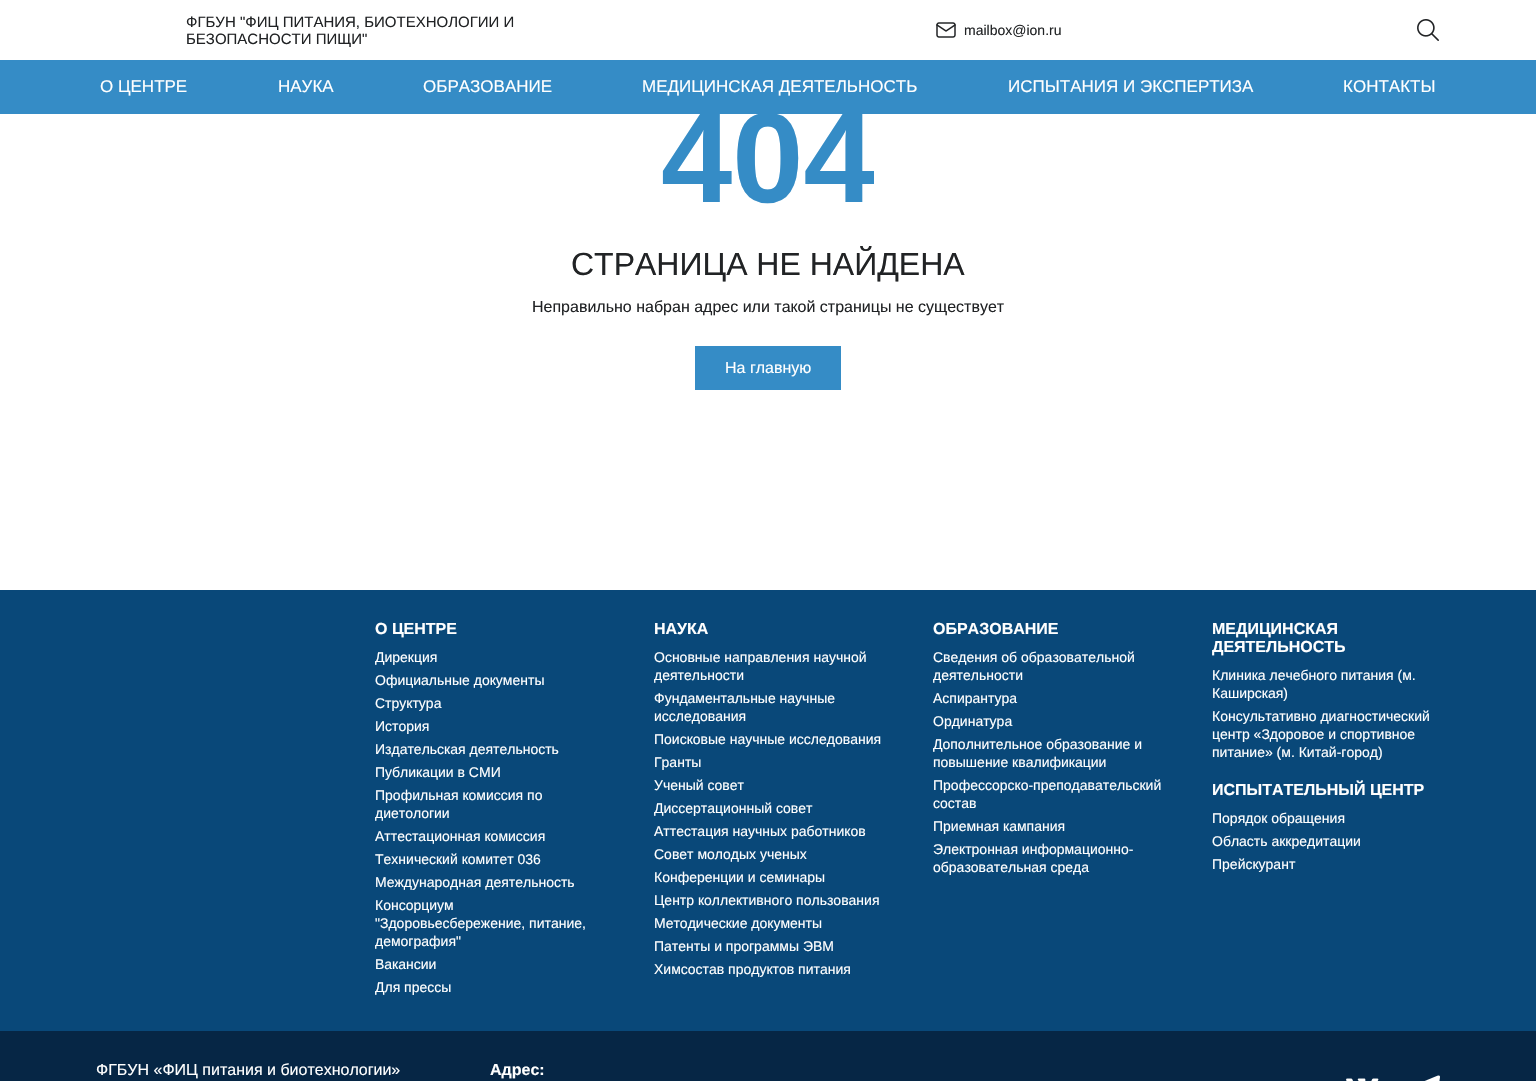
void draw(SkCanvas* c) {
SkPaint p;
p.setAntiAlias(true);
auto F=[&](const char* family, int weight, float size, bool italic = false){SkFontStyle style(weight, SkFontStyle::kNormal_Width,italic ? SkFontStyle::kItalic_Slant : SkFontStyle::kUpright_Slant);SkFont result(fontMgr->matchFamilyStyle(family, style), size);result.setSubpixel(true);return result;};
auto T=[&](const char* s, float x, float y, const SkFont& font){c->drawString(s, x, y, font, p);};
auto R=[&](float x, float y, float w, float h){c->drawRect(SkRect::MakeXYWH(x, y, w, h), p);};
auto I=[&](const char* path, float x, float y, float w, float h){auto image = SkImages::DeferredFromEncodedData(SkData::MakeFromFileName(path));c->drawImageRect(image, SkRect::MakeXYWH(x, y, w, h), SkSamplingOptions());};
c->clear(0xffffffff);
auto f1 = F("Liberation Sans",400,15);
p.setColor(0xff212325);
T("ФГБУН \"ФИЦ ПИТАНИЯ, БИОТЕХНОЛОГИИ И",186,27,f1);
T("БЕЗОПАСНОСТИ ПИЩИ\"",186,44,f1);
I("1.png",936,22,20,16);
auto f2 = F("Liberation Sans",400,14);
T("mailbox@ion.ru",964,35,f2);
I("2.png",1417,19,22,22);
p.setColor(0xff358cc6);
R(0,60,1536,54);
auto f3 = F("Liberation Sans",400,17);
p.setColor(0xffffffff);
T("О ЦЕНТРЕ",100,92,f3);
T("НАУКА",278,92,f3);
T("ОБРАЗОВАНИЕ",423,92,f3);
T("МЕДИЦИНСКАЯ ДЕЯТЕЛЬНОСТЬ",642,92,f3);
T("ИСПЫТАНИЯ И ЭКСПЕРТИЗА",1008,92,f3);
T("КОНТАКТЫ",1343,92,f3);
auto f4 = F("Liberation Sans",700,128);
p.setColor(0xff358cc6);
T("404",661,202,f4);
auto f5 = F("Liberation Sans",400,32);
p.setColor(0xff212325);
T("СТРАНИЦА НЕ НАЙДЕНА",571,275,f5);
auto f6 = F("Liberation Sans",400,16);
T("Неправильно набран адрес или такой страницы не существует",532,312,f6);
p.setColor(0xff358cc6);
R(695,346,146,44);
p.setColor(0xffffffff);
T("На главную",725,373,f6);
p.setColor(0xff094879);
R(0,590,1536,441);
auto f7 = F("Liberation Sans",700,16);
p.setColor(0xffffffff);
T("О ЦЕНТРЕ",375,634,f7);
T("Дирекция",375,662,f2);
T("Официальные документы",375,685,f2);
T("Структура",375,708,f2);
T("История",375,731,f2);
T("Издательская деятельность",375,754,f2);
T("Публикации в СМИ",375,777,f2);
T("Профильная комиссия по",375,800,f2);
T("диетологии",375,818,f2);
T("Аттестационная комиссия",375,841,f2);
T("Технический комитет 036",375,864,f2);
T("Международная деятельность",375,887,f2);
T("Консорциум",375,910,f2);
T("\"Здоровьесбережение, питание,",375,928,f2);
T("демография\"",375,946,f2);
T("Вакансии",375,969,f2);
T("Для прессы",375,992,f2);
T("НАУКА",654,634,f7);
T("Основные направления научной",654,662,f2);
T("деятельности",654,680,f2);
T("Фундаментальные научные",654,703,f2);
T("исследования",654,721,f2);
T("Поисковые научные исследования",654,744,f2);
T("Гранты",654,767,f2);
T("Ученый совет",654,790,f2);
T("Диссертационный совет",654,813,f2);
T("Аттестация научных работников",654,836,f2);
T("Совет молодых ученых",654,859,f2);
T("Конференции и семинары",654,882,f2);
T("Центр коллективного пользования",654,905,f2);
T("Методические документы",654,928,f2);
T("Патенты и программы ЭВМ",654,951,f2);
T("Химсостав продуктов питания",654,974,f2);
T("ОБРАЗОВАНИЕ",933,634,f7);
T("Сведения об образовательной",933,662,f2);
T("деятельности",933,680,f2);
T("Аспирантура",933,703,f2);
T("Ординатура",933,726,f2);
T("Дополнительное образование и",933,749,f2);
T("повышение квалификации",933,767,f2);
T("Профессорско-преподавательский",933,790,f2);
T("состав",933,808,f2);
T("Приемная кампания",933,831,f2);
T("Электронная информационно-",933,854,f2);
T("образовательная среда",933,872,f2);
T("МЕДИЦИНСКАЯ",1212,634,f7);
T("ДЕЯТЕЛЬНОСТЬ",1212,652,f7);
T("Клиника лечебного питания (м.",1212,680,f2);
T("Каширская)",1212,698,f2);
T("Консультативно диагностический",1212,721,f2);
T("центр «Здоровое и спортивное",1212,739,f2);
T("питание» (м. Китай-город)",1212,757,f2);
T("ИСПЫТАТЕЛЬНЫЙ ЦЕНТР",1212,795,f7);
T("Порядок обращения",1212,823,f2);
T("Область аккредитации",1212,846,f2);
T("Прейскурант",1212,869,f2);
p.setColor(0xff062645);
R(0,1031,1536,50);
p.setColor(0xffffffff);
T("ФГБУН «ФИЦ питания и биотехнологии»",96,1075,f6);
T("Адрес:",490,1075,f7);
I("3.png",1346,1078,33,3);
I("4.png",1424,1075,16,6);
}
